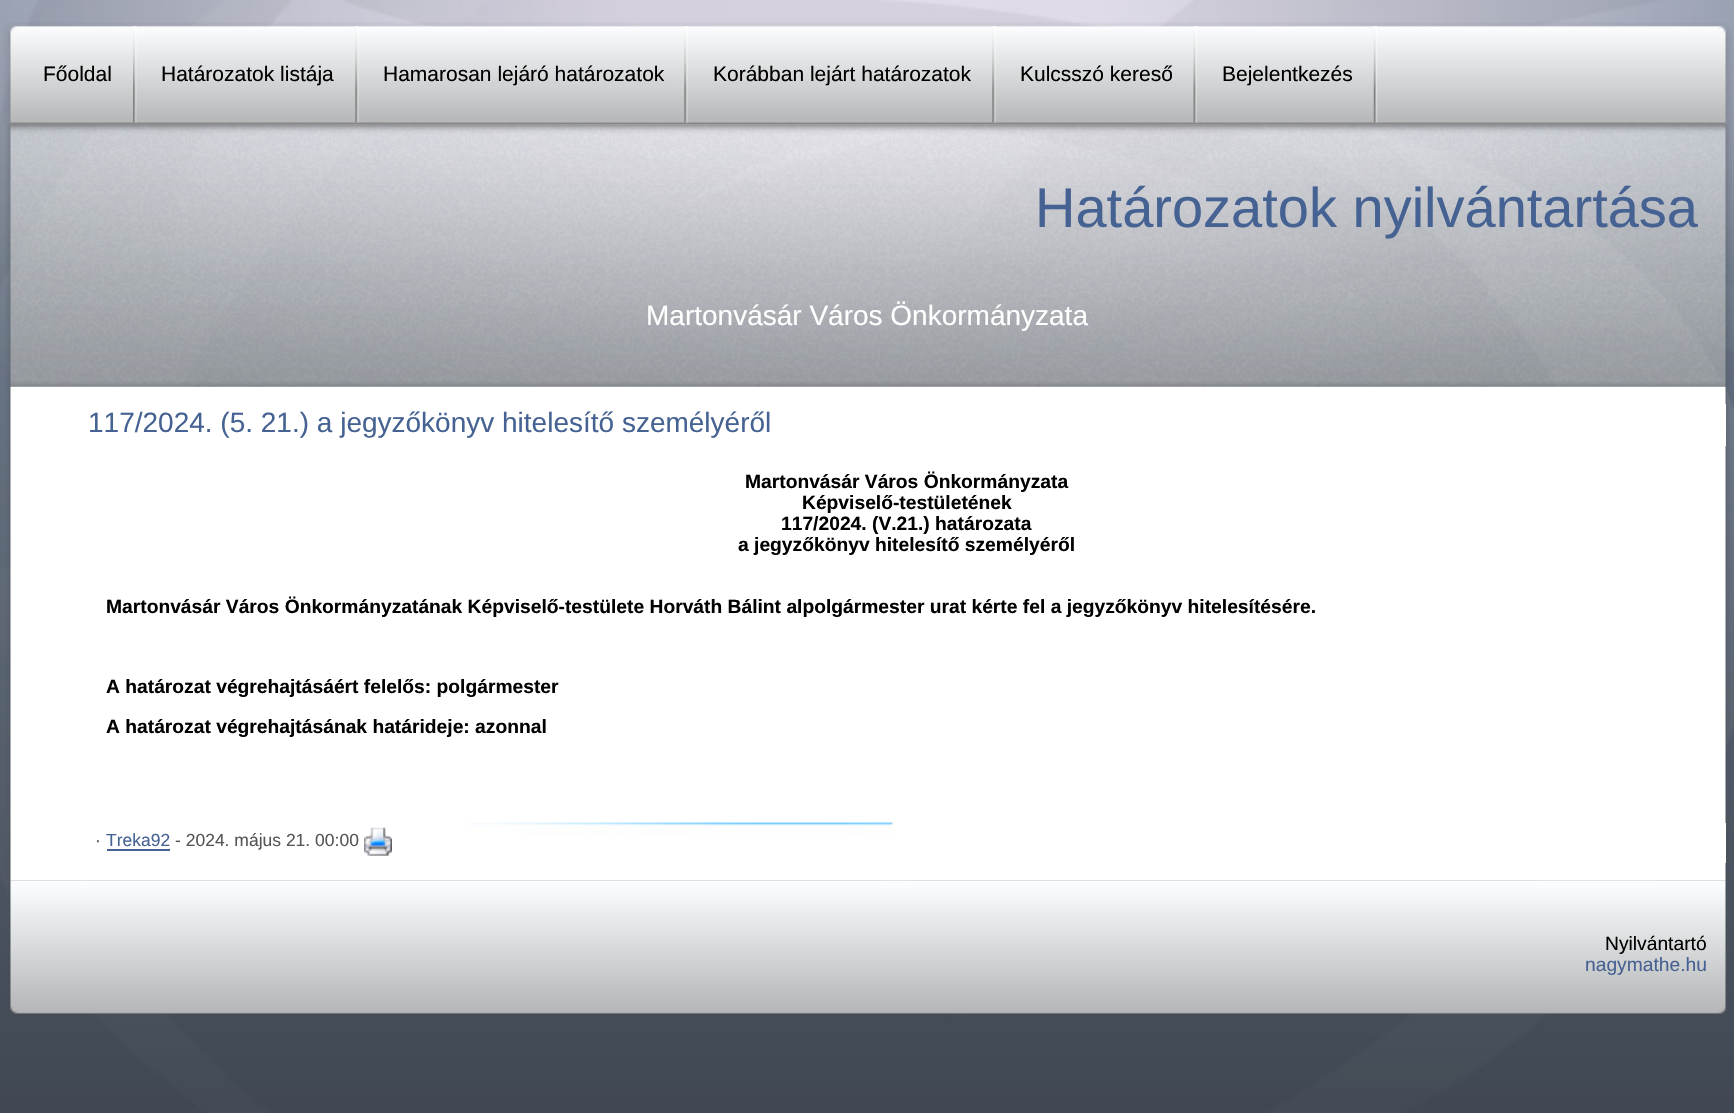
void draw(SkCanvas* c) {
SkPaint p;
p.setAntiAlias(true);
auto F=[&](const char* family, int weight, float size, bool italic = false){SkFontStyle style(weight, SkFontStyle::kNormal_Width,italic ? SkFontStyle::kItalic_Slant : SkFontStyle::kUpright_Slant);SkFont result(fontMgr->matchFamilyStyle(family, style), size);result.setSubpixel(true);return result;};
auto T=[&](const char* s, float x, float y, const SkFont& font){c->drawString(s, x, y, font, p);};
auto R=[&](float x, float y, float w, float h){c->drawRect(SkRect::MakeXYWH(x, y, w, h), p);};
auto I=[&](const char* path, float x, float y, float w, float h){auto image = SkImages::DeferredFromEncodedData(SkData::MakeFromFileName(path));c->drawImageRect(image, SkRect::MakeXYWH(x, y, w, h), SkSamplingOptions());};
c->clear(0xffffffff);
I("1.png",0,0,1734,1113);
I("9.png",5,124,1727,263);
I("2.png",3,22,1730,103);
I("3.png",133,26,4,97);
auto f1 = F("Liberation Sans",400,21);
p.setColor(0xff000000);
T("Főoldal",43,81,f1);
I("4.png",355,26,4,97);
T("Határozatok listája",161,81,f1);
I("5.png",684,26,4,97);
T("Hamarosan lejáró határozatok",383,81,f1);
I("6.png",992,26,4,97);
T("Korábban lejárt határozatok",713,81,f1);
I("7.png",1193,26,4,97);
T("Kulcsszó kereső",1020,81,f1);
I("8.png",1373,26,5,97);
T("Bejelentkezés",1222,81,f1);
auto f2 = F("Liberation Sans",400,56);
p.setColor(0xff456292);
T("Határozatok nyilvántartása",1035,227,f2);
auto f3 = F("Liberation Sans",400,28);
p.setColor(0xffffffff);
T("Martonvásár Város Önkormányzata",646,325,f3);
I("10.png",6,386,1725,495);
R(1725,404,1,42);
p.setColor(0xff456292);
T("117/2024. (5. 21.) a jegyzőkönyv hitelesítő személyéről",88,432,f3);
auto f4 = F("Liberation Sans",700,19.25);
p.setColor(0xff000000);
T("Martonvásár Város Önkormányzata",745,488,f4);
T("Képviselő-testületének",802,509,f4);
T("117/2024. (V.21.) határozata",781,530,f4);
T("a jegyzőkönyv hitelesítő személyéről",738,551,f4);
T("Martonvásár Város Önkormányzatának Képviselő-testülete Horváth Bálint alpolgármester urat kérte fel a jegyzőkönyv hitelesítésére.",106,613,f4);
T("A határozat végrehajtásáért felelős: polgármester",106,693,f4);
T("A határozat végrehajtásának határideje: azonnal",106,733,f4);
p.setColor(0xffffffff);
R(1725,823,1,40);
I("11.png",467,822,426,14);
auto f5 = F("Liberation Sans",400,17.5);
p.setColor(0xff555555);
T("·",95,846,f5);
p.setColor(0xff456292);
T("Treka92",106,846,f5);
R(107,849,63,2);
p.setColor(0xff555555);
T("- 2024. május 21. 00:00",175,846,f5);
I("12.png",364,827,28,29);
I("13.png",8,880,1719,136);
auto f6 = F("Liberation Sans",400,19.25);
p.setColor(0xff000000);
T("Nyilvántartó",1605,950,f6);
p.setColor(0xff456292);
T("nagymathe.hu",1585,971,f6);
}
